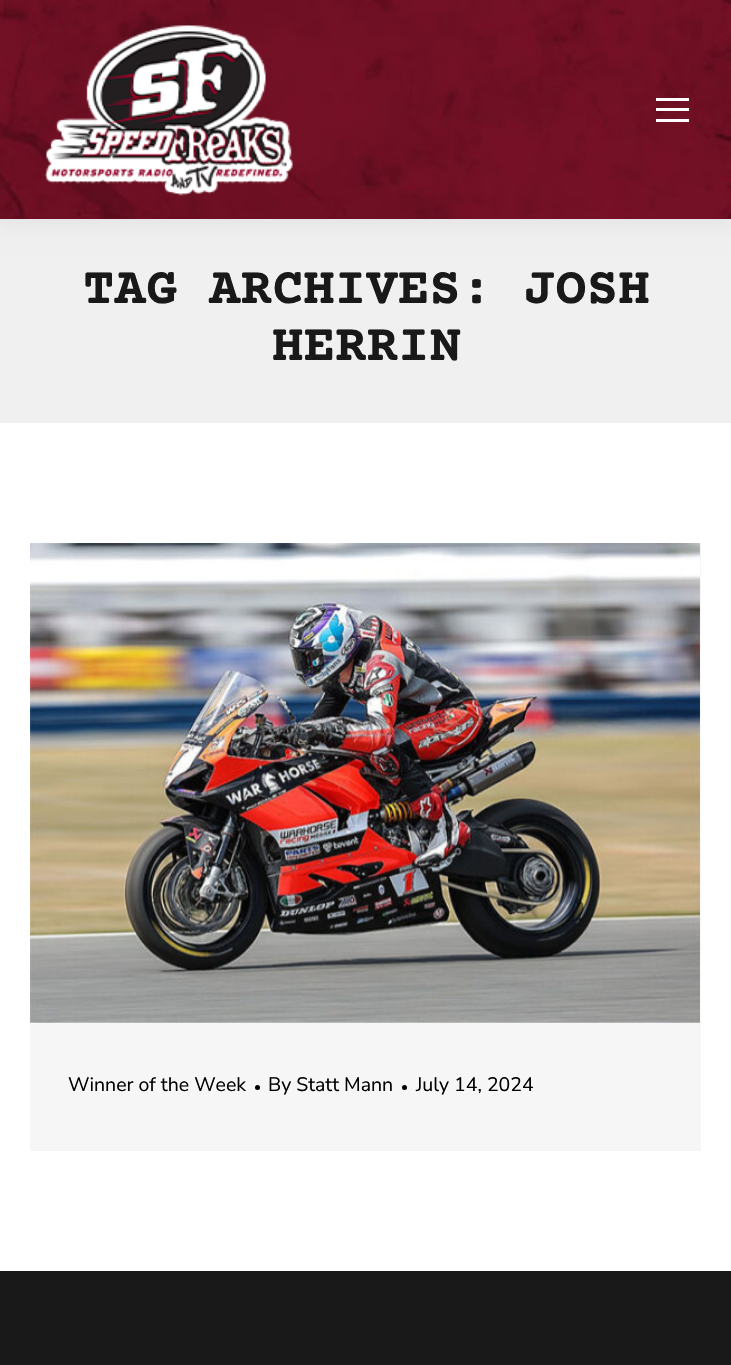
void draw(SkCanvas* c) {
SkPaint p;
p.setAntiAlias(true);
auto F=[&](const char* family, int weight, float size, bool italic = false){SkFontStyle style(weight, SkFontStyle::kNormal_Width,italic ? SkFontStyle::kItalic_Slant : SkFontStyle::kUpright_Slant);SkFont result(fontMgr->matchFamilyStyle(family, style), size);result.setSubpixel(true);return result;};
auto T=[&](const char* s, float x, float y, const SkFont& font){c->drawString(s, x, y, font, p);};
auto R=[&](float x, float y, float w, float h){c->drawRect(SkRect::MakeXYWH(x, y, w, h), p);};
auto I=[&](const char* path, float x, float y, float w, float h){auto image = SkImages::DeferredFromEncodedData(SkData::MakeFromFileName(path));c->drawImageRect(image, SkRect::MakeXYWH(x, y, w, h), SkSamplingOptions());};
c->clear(0xffffffff);
p.setColor(0xfff0f0f0);
R(0,219,731,204);
p.setColor(0x12000000);
p.setMaskFilter(SkMaskFilter::MakeBlur(kNormal_SkBlurStyle, 11));
c->drawRect(SkRect::MakeXYWH(-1,-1,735,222),p);
p.setMaskFilter(nullptr);
I("1.png",0,0,731,219);
I("2.png",44,25,249,171);
p.setColor(0xffffffff);
R(656,98,33,3);
R(656,108,33,3);
R(656,119,33,3);
auto f1 = F("Courier Prime",700,52.5);
p.setColor(0xff1a1919);
T("TAG ARCHIVES: JOSH",83,303,f1);
T("HERRIN",272,360,f1);
p.setColor(0xfff6f6f6);
R(30,543,671,608);
I("3.png",30,543,670,480);
auto f2 = F("Nunito Sans",400,19.5);
p.setColor(0xff000000);
T("Winner of the Week",68,1091,f2);
c->drawCircle(257.5,1087.5,2.5,p);
T("By Statt Mann",268,1091,f2);
c->drawCircle(404.5,1087.5,2.5,p);
T("July 14, 2024",416,1091,f2);
p.setColor(0xff1a1919);
R(0,1271,731,94);
}
